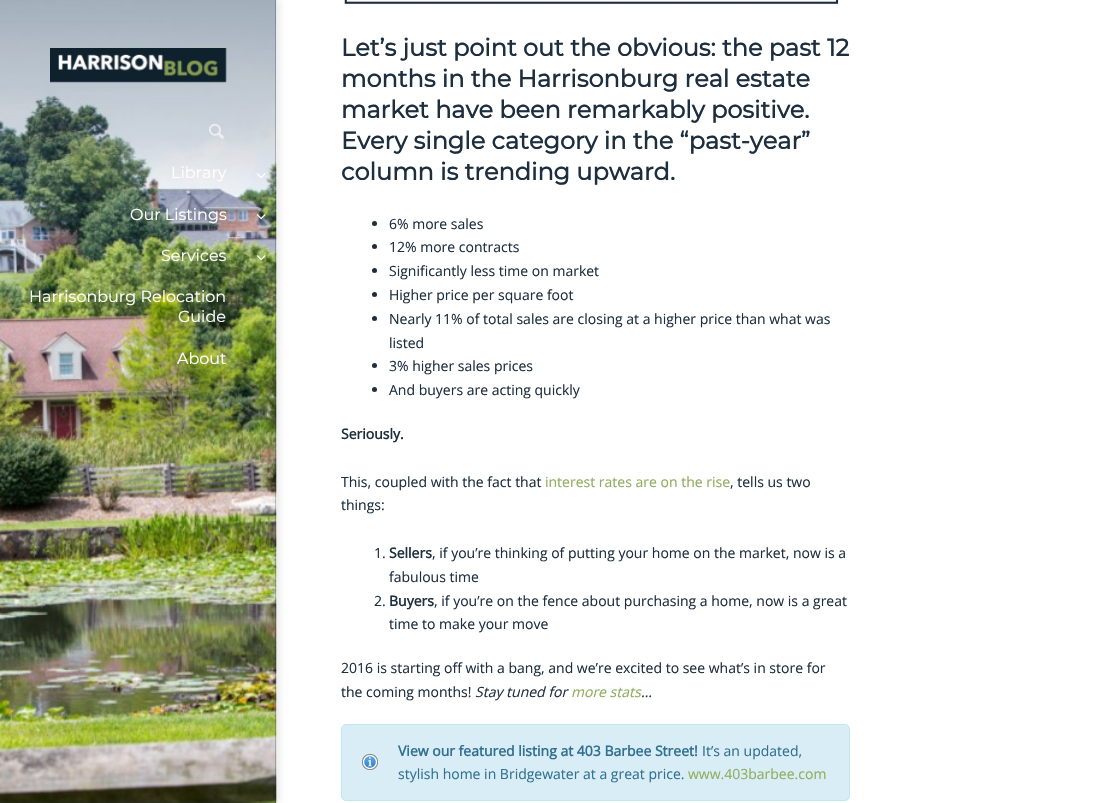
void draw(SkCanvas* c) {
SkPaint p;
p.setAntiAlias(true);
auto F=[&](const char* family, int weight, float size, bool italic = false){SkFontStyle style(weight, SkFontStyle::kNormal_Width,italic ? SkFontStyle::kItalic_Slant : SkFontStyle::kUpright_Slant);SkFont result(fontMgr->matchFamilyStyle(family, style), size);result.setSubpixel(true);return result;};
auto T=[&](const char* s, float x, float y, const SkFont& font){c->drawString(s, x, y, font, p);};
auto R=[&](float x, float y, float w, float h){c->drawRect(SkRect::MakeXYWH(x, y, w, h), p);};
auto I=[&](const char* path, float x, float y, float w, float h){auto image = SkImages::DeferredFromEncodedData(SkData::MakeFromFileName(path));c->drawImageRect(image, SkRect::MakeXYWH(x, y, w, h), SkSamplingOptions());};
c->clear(0xffffffff);
p.setColor(0x14000000);
p.setMaskFilter(SkMaskFilter::MakeBlur(kNormal_SkBlurStyle, 3));
c->drawRect(SkRect::MakeXYWH(4,0,276,803),p);
p.setMaskFilter(nullptr);
p.setColor(0xff1d2e3f);
R(0,0,276,803);
I("1.png",0,0,277,803);
{
const SkColor colors[] = {0x40000000,0x1f000000,0x00000000};
const float stops[] = {0,.65,1};
const SkPoint ends[] = {{138,0}, {138,208}};
p.setShader(SkGradientShader::MakeLinear(ends, colors, stops, 3, SkTileMode::kClamp));
p.setAlpha(255);
}
R(0,0,276,195);
I("2.png",50,48,177,35);
I("3.png",209,123,15,16);
auto f1 = F("Montserrat",100,16);
p.setShader(nullptr);
p.setColor(0xffffffff);
T("Library",171,178,f1);
I("4.png",257,173,9,5);
T("Our Listings",130,220,f1);
I("5.png",256,214,10,6);
T("Services",161,261,f1);
I("6.png",256,255,10,6);
T("Harrisonburg Relocation",29,302,f1);
T("Guide",178,322,f1);
T("About",177,364,f1);
I("7.png",344,0,495,5);
auto f2 = F("Montserrat",700,24);
p.setColor(0xff1d2e3f);
T("Let’s just point out the obvious: the past 12",341,56,f2);
T("months in the Harrisonburg real estate",341,87,f2);
T("market have been remarkably positive.",341,118,f2);
T("Every single category in the “past-year”",341,149,f2);
T("column is trending upward.",341,180,f2);
c->drawCircle(374.5,223.5,2.5,p);
auto f3 = F("Open Sans",400,14);
T("6% more sales",389,229,f3);
c->drawCircle(374.5,246.5,2.5,p);
T("12% more contracts",389,252,f3);
c->drawCircle(374.5,270.5,2.5,p);
T("Significantly less time on market",389,276,f3);
c->drawCircle(374.5,294.5,2.5,p);
T("Higher price per square foot",389,300,f3);
c->drawCircle(374.5,318.5,2.5,p);
T("Nearly 11% of total sales are closing at a higher price than what was",389,324,f3);
T("listed",389,348,f3);
c->drawCircle(374.5,365.5,2.5,p);
T("3% higher sales prices",389,371,f3);
c->drawCircle(374.5,389.5,2.5,p);
T("And buyers are acting quickly",389,395,f3);
auto f4 = F("Open Sans",700,14);
T("Seriously.",341,439,f4);
T("This, coupled with the fact that",341,487,f3);
p.setColor(0xff8fad5d);
T("interest rates are on the rise",545,487,f3);
p.setColor(0xff1d2e3f);
T(", tells us two",730,487,f3);
T("things:",341,510,f3);
T("1.",374,558,f3);
T("Sellers",389,558,f4);
T(", if you’re thinking of putting your home on the market, now is a",432,558,f3);
T("fabulous time",389,582,f3);
T("2.",374,606,f3);
T("Buyers",389,606,f4);
T(", if you’re on the fence about purchasing a home, now is a great",434,606,f3);
T("time to make your move",389,629,f3);
T("2016 is starting off with a bang, and we’re excited to see what’s in store for",341,673,f3);
T("the coming months!",341,697,f3);
auto f5 = F("Open Sans",400,14,true);
T("Stay tuned for",475,697,f5);
p.setColor(0xff8fad5d);
T("more stats",571,697,f5);
p.setColor(0xff1d2e3f);
T("…",641,697,f5);
p.setColor(0xffd9edf7);
c->drawRoundRect(SkRect::MakeXYWH(341.5,724.5,508,76),4.5,4.5,p);
p.setStroke(true);
p.setStrokeWidth(1);
p.setColor(0xffbce8f1);
c->drawRoundRect(SkRect::MakeXYWH(341.5,724.5,508,76),4.5,4.5,p);
I("8.png",362,754,16,16);
p.setStroke(false);
p.setColor(0xff31708f);
T("View our featured listing at 403 Barbee Street!",398,756,f4);
T("It’s an updated,",702,756,f3);
T("stylish home in Bridgewater at a great price.",398,779,f3);
p.setColor(0xff8fad5d);
T("www.403barbee.com",688,779,f3);
}
